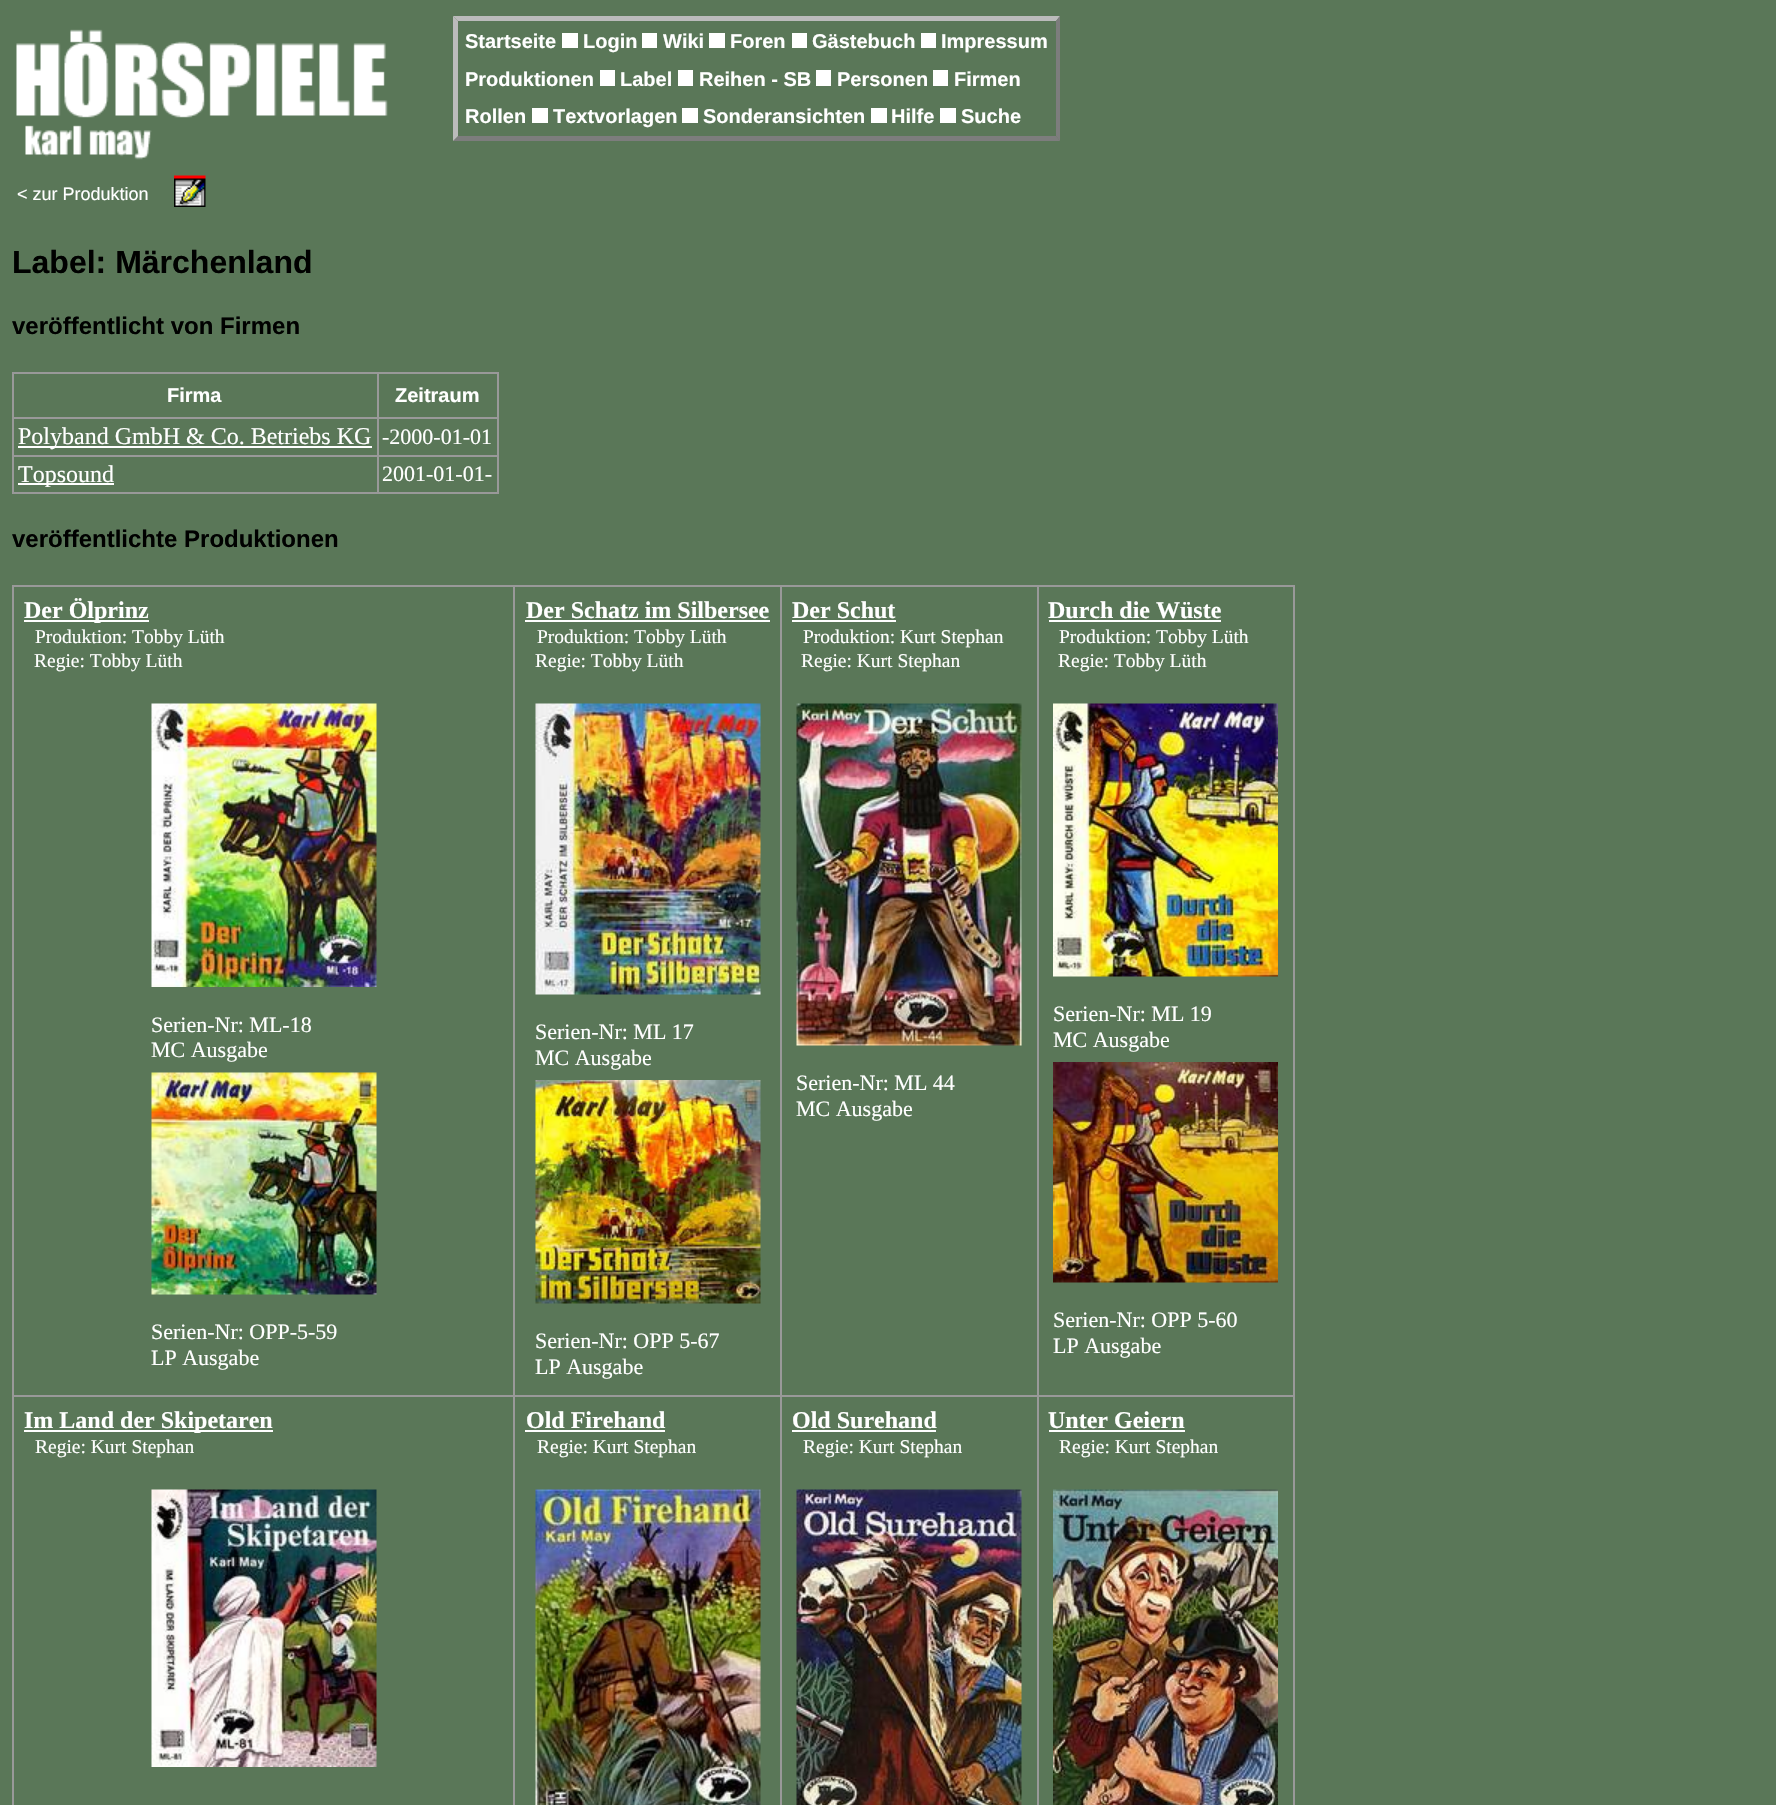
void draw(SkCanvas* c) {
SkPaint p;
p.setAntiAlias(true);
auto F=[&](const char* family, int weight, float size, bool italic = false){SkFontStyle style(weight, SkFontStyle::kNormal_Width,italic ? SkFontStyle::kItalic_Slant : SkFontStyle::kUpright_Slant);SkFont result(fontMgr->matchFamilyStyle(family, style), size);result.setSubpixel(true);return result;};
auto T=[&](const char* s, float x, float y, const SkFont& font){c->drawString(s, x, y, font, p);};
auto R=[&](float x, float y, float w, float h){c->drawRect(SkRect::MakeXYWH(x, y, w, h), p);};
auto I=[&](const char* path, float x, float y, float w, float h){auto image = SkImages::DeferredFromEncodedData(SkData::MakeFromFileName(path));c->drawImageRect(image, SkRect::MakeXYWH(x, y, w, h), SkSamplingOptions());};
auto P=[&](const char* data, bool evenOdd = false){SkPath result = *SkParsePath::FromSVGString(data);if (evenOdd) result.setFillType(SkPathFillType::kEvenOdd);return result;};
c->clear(0xff5a7758);
I("1.png",16,29,372,131);
p.setColor(0xffbbbbbb);
c->drawPath(P("M453 16h607l-4 5h-598z"),p);
p.setColor(0xff7d7d7d);
c->drawPath(P("M1060 16v125l-4-5v-115z"),p);
c->drawPath(P("M1060 141h-607l5-5h598z"),p);
p.setColor(0xffbbbbbb);
c->drawPath(P("M453 141v-125l5 5v115z"),p);
auto f1 = F("Liberation Sans",700,20);
p.setColor(0xffffffff);
T("Startseite",465,48,f1);
R(562,33,16,15);
T("Login",583,48,f1);
R(642,33,15,15);
T("Wiki",663,48,f1);
R(709,33,16,15);
T("Foren",730,48,f1);
R(792,33,15,15);
T("Gästebuch",812,48,f1);
R(921,33,15,15);
T("Impressum",941,48,f1);
T("Produktionen",465,86,f1);
R(600,70,15,16);
T("Label",620,86,f1);
R(678,70,15,16);
T("Reihen - SB",699,86,f1);
R(816,70,15,16);
T("Personen",837,86,f1);
R(933,70,15,16);
T("Firmen",954,86,f1);
T("Rollen",465,123,f1);
R(532,108,16,15);
T("Textvorlagen",553,123,f1);
R(682,108,16,15);
T("Sonderansichten",703,123,f1);
R(871,108,16,15);
T("Hilfe",891,123,f1);
R(940,108,16,15);
T("Suche",961,123,f1);
auto f2 = F("Liberation Sans",400,18);
T("< zur Produktion",17,200,f2);
I("2.png",174,175,32,32);
auto f3 = F("Liberation Sans",700,32);
p.setColor(0xff000100);
T("Label: Märchenland",12,273,f3);
auto f4 = F("Liberation Sans",700,24);
T("veröffentlicht von Firmen",12,334,f4);
p.setColor(0xff999999);
R(12,372,486,2);
R(497,372,2,122);
R(12,492,486,2);
R(12,372,2,122);
p.setColor(0xffffffff);
T("Firma",167,402,f1);
p.setColor(0xff999999);
R(377,417,121,2);
R(377,455,121,2);
R(377,455,2,39);
R(12,455,366,2);
R(377,417,2,39);
R(12,417,366,2);
R(377,372,2,47);
p.setColor(0xffffffff);
T("Zeitraum",395,402,f1);
R(18,446,354,2);
auto f5 = F("Liberation Serif",400,24);
T("Polyband GmbH & Co. Betriebs KG",18,444,f5);
auto f6 = F("Liberation Serif",400,22);
T("-2000-01-01",382,444,f6);
R(18,483,96,2);
T("Topsound",18,482,f5);
T("2001-01-01-",382,481,f6);
p.setColor(0xff000100);
T("veröffentlichte Produktionen",12,547,f4);
p.setColor(0xff999999);
R(12,585,1283,2);
R(1293,585,2,1220);
R(12,585,2,1220);
p.setColor(0xffffffff);
R(24,620,125,2);
auto f7 = F("Liberation Serif",700,24);
T("Der Ölprinz",24,618,f7);
auto f8 = F("Liberation Serif",400,19.5);
T("Produktion: Tobby Lüth",35,643,f8);
T("Regie: Tobby Lüth",34,667,f8);
I("3.png",151,703,226,284);
T("Serien-Nr: ML-18",151,1032,f6);
T("MC Ausgabe",151,1057,f6);
I("4.png",151,1072,226,223);
T("Serien-Nr: OPP-5-59",151,1339,f6);
T("LP Ausgabe",151,1365,f6);
p.setColor(0xff999999);
R(1037,1395,258,2);
R(1037,1395,2,410);
R(780,1395,258,2);
R(780,1395,2,410);
R(513,1395,269,2);
R(513,1395,2,410);
R(12,1395,503,2);
R(513,585,2,812);
p.setColor(0xffffffff);
T("Der Schatz im Silbersee",526,618,f7);
R(525,620,245,2);
T("Produktion: Tobby Lüth",537,643,f8);
T("Regie: Tobby Lüth",535,667,f8);
I("5.png",535,703,226,292);
T("Serien-Nr: ML 17",535,1039,f6);
T("MC Ausgabe",535,1065,f6);
I("6.png",535,1080,226,224);
T("Serien-Nr: OPP 5-67",535,1348,f6);
T("LP Ausgabe",535,1374,f6);
p.setColor(0xff999999);
R(780,585,2,812);
p.setColor(0xffffffff);
T("Der Schut",792,618,f7);
R(792,620,104,2);
T("Produktion: Kurt Stephan",803,643,f8);
T("Regie: Kurt Stephan",801,667,f8);
I("7.png",796,703,226,343);
T("Serien-Nr: ML 44",796,1090,f6);
T("MC Ausgabe",796,1116,f6);
p.setColor(0xff999999);
R(1037,585,2,812);
p.setColor(0xffffffff);
T("Durch die Wüste",1048,618,f7);
R(1049,620,172,2);
T("Produktion: Tobby Lüth",1059,643,f8);
T("Regie: Tobby Lüth",1058,667,f8);
I("8.png",1053,703,225,274);
T("Serien-Nr: ML 19",1053,1021,f6);
T("MC Ausgabe",1053,1047,f6);
I("9.png",1053,1062,225,221);
T("Serien-Nr: OPP 5-60",1053,1327,f6);
T("LP Ausgabe",1053,1353,f6);
R(24,1430,249,2);
T("Im Land der Skipetaren",24,1428,f7);
T("Regie: Kurt Stephan",35,1453,f8);
I("10.png",151,1489,226,278);
T("Old Firehand",526,1428,f7);
R(525,1430,140,2);
T("Regie: Kurt Stephan",537,1453,f8);
I("11.png",535,1489,226,316);
T("Old Surehand",792,1428,f7);
R(792,1430,144,2);
T("Regie: Kurt Stephan",803,1453,f8);
I("12.png",796,1489,226,316);
T("Unter Geiern",1048,1428,f7);
R(1049,1430,136,2);
T("Regie: Kurt Stephan",1059,1453,f8);
I("13.png",1053,1489,225,316);
}
